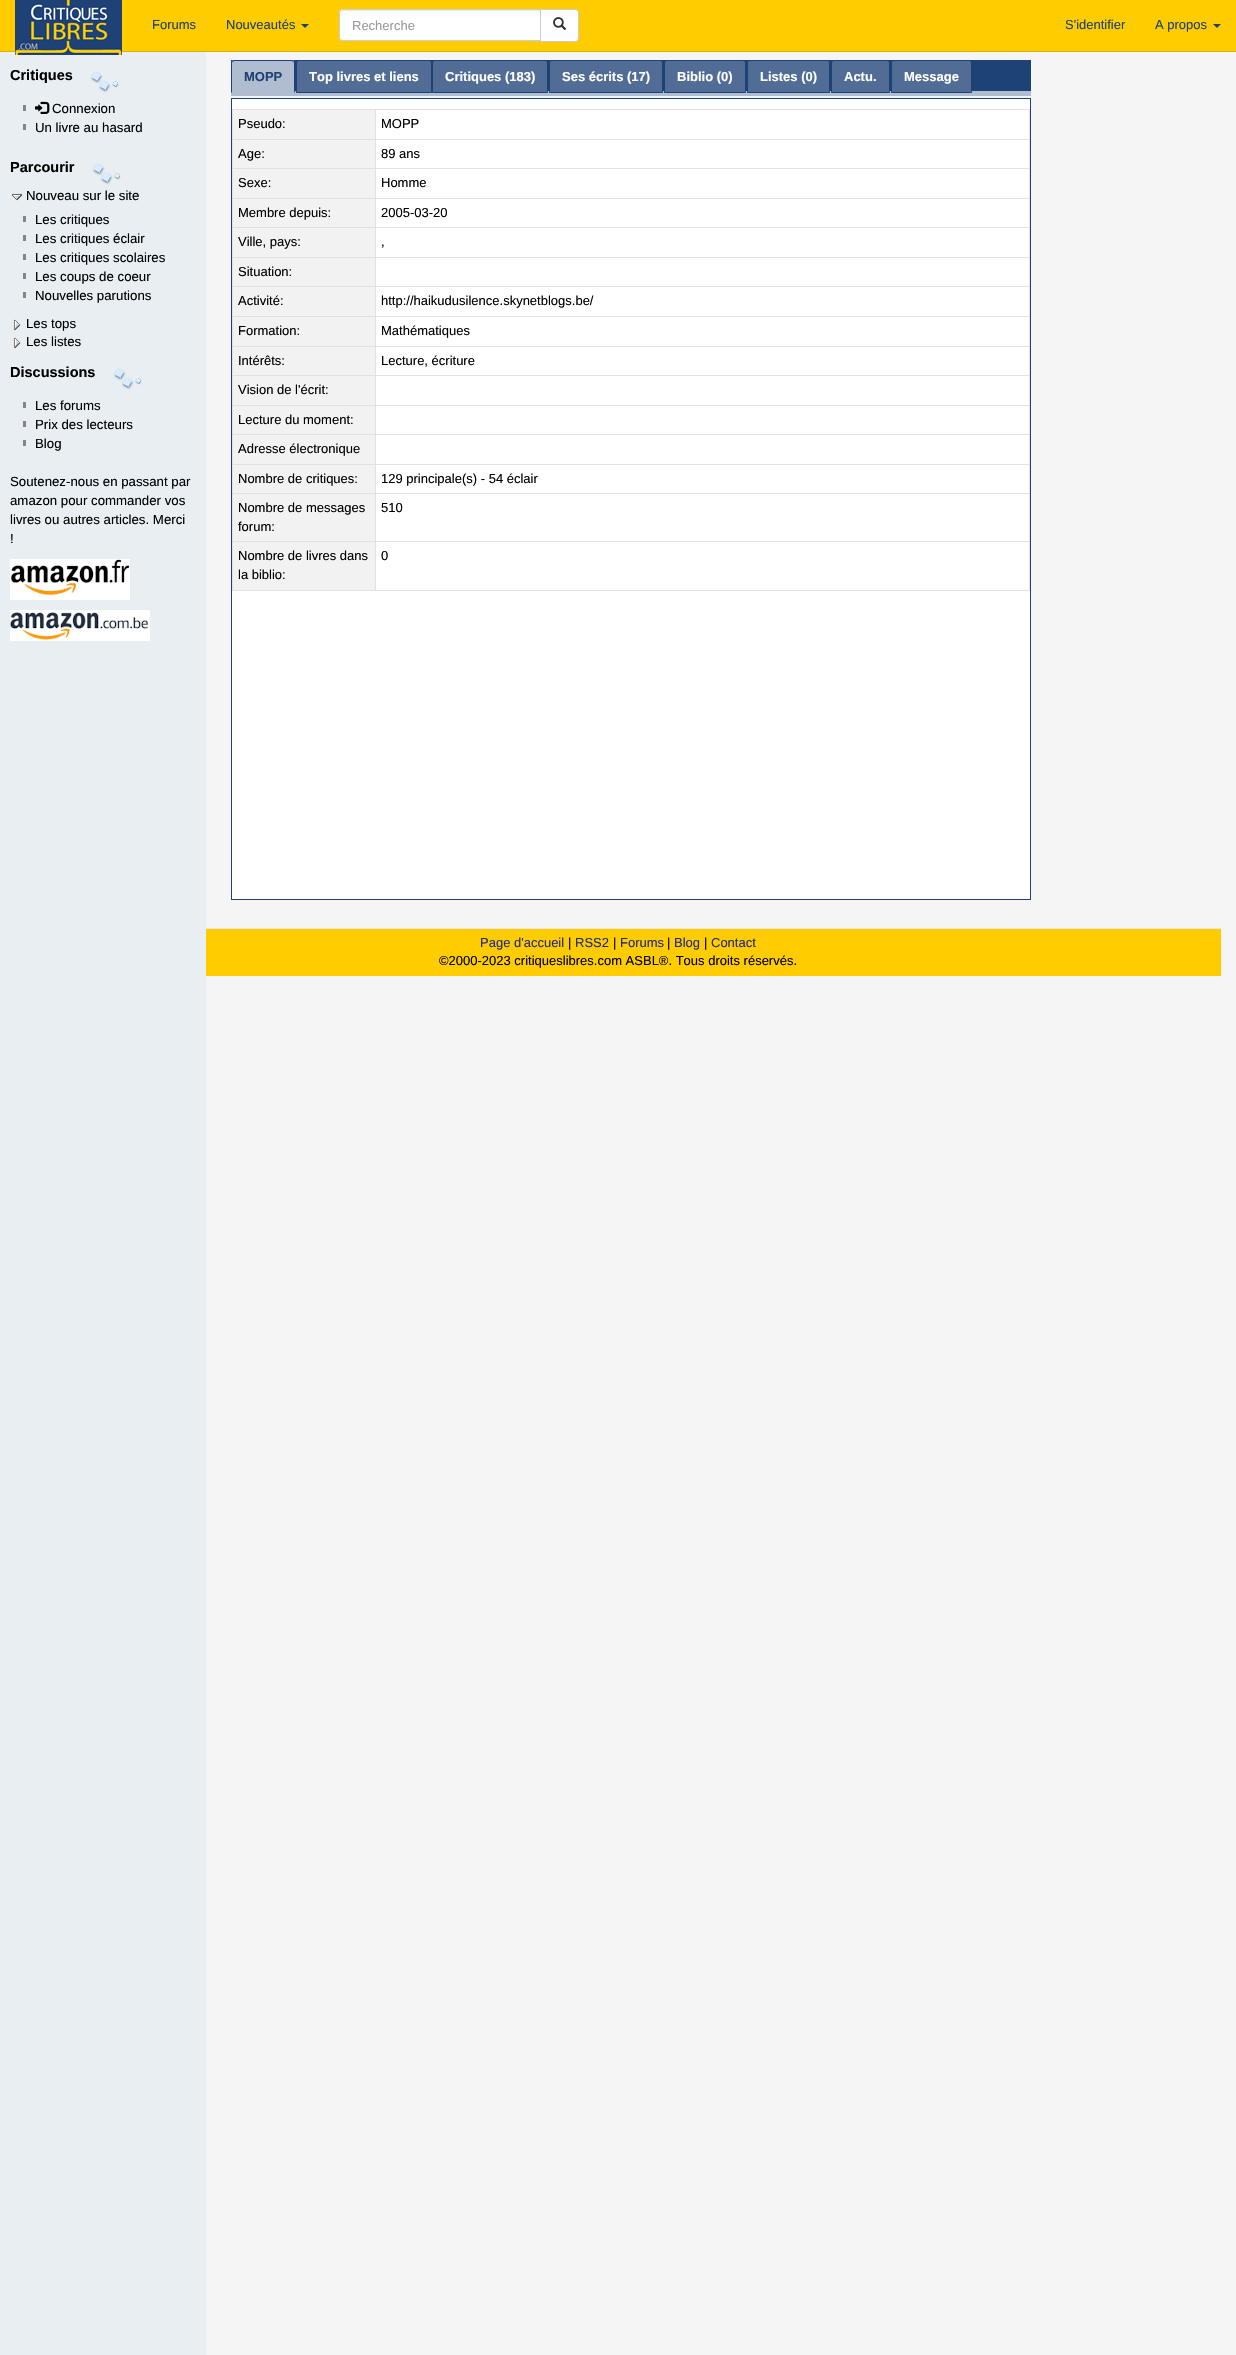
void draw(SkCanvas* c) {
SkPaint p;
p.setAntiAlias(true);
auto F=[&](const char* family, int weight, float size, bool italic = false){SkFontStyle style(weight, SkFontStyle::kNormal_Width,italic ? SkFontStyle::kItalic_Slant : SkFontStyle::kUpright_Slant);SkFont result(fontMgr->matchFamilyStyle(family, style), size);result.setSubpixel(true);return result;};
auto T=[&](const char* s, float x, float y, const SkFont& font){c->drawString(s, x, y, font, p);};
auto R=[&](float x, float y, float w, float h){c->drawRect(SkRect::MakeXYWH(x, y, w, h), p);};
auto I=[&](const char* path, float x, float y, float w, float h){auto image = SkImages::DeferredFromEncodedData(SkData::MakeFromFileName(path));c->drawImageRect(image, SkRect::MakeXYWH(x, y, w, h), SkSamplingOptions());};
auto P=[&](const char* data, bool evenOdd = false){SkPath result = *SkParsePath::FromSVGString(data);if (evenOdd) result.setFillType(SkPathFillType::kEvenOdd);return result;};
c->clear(0xfff5f5f5);
p.setColor(0xffffcc00);
R(0,0,1236,51);
p.setColor(0xffdeb100);
R(0,51,1236,1);
p.setColor(0xffe8eef1);
R(0,52,206,2303);
I("1.png",15,0,107,55);
auto f1 = F("Liberation Sans",400,13);
p.setColor(0xff1e4176);
T("Forums",152,29,f1);
T("Nouveautés",226,29,f1);
c->drawPath(P("M301 24h8l-4 4z"),p);
p.setColor(0xffffffff);
c->drawPath(P("M343 9h198v32h-198c-2 0-4-2-4-4v-24c0-2 2-4 4-4z"),p);
p.setColor(0xffececec);
c->drawPath(P("M343 11h197v-1h-197c-2 0-3 2-3 4c0-2 1-3 3-3z"),p);
p.setStroke(true);
p.setStrokeWidth(1);
p.setColor(0xffcccccc);
c->drawPath(P("M343 9.5h197.5v31h-197.5c-2 0-3.5-1.5-3.5-3.5v-24c0-2 1.5-3.5 3.5-3.5z"),p);
p.setStroke(false);
p.setColor(0xff999999);
T("Recherche",352,30,f1);
p.setColor(0xffffffff);
c->drawPath(P("M540.5 9.5h34.5c2 0 3.5 1.5 3.5 3.5v25c0 2-1.5 3.5-3.5 3.5h-34.5z"),p);
p.setStroke(true);
p.setColor(0xffcccccc);
c->drawPath(P("M540.5 9.5h34.5c2 0 3.5 1.5 3.5 3.5v25c0 2-1.5 3.5-3.5 3.5h-34.5z"),p);
I("2.png",553,17,14,13);
p.setStroke(false);
p.setColor(0xff1e4176);
T("S'identifier",1065,29,f1);
T("A propos",1155,29,f1);
c->drawPath(P("M1213 24h8l-4 4z"),p);
auto f2 = F("Liberation Sans",700,14.5);
p.setColor(0xff000000);
T("Critiques",10,80,f2);
I("3.png",90,71,29,22);
p.setColor(0xff858585);
R(23,105,3,6);
I("4.png",35,101,15,13);
auto f3 = F("Liberation Sans",400,13.25);
p.setColor(0xff000000);
T("Connexion",52,113,f3);
p.setColor(0xff858585);
R(23,124,3,6);
p.setColor(0xff000000);
T("Un livre au hasard",35,132,f3);
T("Parcourir",10,172,f2);
I("3.png",92,163,29,22);
I("5.png",11,193,12,8);
T("Nouveau sur le site",26,200,f3);
p.setColor(0xff858585);
R(23,216,3,6);
p.setColor(0xff000000);
T("Les critiques",35,224,f3);
p.setColor(0xff858585);
R(23,235,3,6);
p.setColor(0xff000000);
T("Les critiques éclair",35,243,f3);
p.setColor(0xff858585);
R(23,254,3,6);
p.setColor(0xff000000);
T("Les critiques scolaires",35,262,f3);
p.setColor(0xff858585);
R(23,273,3,6);
p.setColor(0xff000000);
T("Les coups de coeur",35,281,f3);
p.setColor(0xff858585);
R(23,292,3,6);
p.setColor(0xff000000);
T("Nouvelles parutions",35,300,f3);
I("6.png",13,319,8,12);
T("Les tops",26,328,f3);
I("6.png",13,337,8,12);
T("Les listes",26,346,f3);
T("Discussions",10,377,f2);
I("3.png",113,368,29,22);
p.setColor(0xff858585);
R(23,402,3,6);
p.setColor(0xff000000);
T("Les forums",35,410,f3);
p.setColor(0xff858585);
R(23,421,3,6);
p.setColor(0xff000000);
T("Prix des lecteurs",35,429,f3);
p.setColor(0xff858585);
R(23,440,3,6);
p.setColor(0xff000000);
T("Blog",35,448,f3);
T("Soutenez-nous en passant par",10,486,f3);
T("amazon pour commander vos",10,505,f3);
T("livres ou autres articles. Merci",10,524,f3);
T("!",10,543,f3);
I("7.png",10,559,120,41);
I("8.png",10,610,140,31);
p.setColor(0xff1e4176);
R(231,60,800,31);
p.setColor(0xffb0bccf);
R(231,91,800,5);
c->drawPath(P("M234 60h58c1.5 0 3 1.5 3 3v30h-64v-30c0-1.5 1.5-3 3-3z"),p);
p.setColor(0xff1e4176);
c->drawPath(P("M234 60l-2 1l1 1l1-1h58l1 1l1-1l-2-1z"),p);
c->drawPath(P("M295 93v-30c0-1 0-2-1-2l-.5 .5l.5 1.5v29z"),p);
p.setColor(0xffb0bccf);
c->drawPath(P("M295 93l-1-1h-62l-1 1z"),p);
p.setColor(0xff1e4176);
c->drawPath(P("M231 93l1-1v-29l.5-1.5l-.5-.5c-1 0-1 1-1 2z"),p);
auto f4 = F("Liberation Sans",700,13);
T("MOPP",244,81,f4);
p.setColor(0xff526d95);
c->drawPath(P("M299 60.5h130c1.5 0 2.5 1 2.5 2.5v29.5h-135v-29.5c0-1.5 1-2.5 2.5-2.5z"),p);
p.setStroke(true);
p.setColor(0xff1e4176);
c->drawPath(P("M299 60.5h130c1.5 0 2.5 1 2.5 2.5v29.5h-135v-29.5c0-1.5 1-2.5 2.5-2.5z"),p);
p.setStroke(false);
p.setColor(0xffffffff);
T("Top livres et liens",309,81,f4);
p.setColor(0xff526d95);
c->drawPath(P("M435 60.5h110c1.5 0 2.5 1 2.5 2.5v29.5h-115v-29.5c0-1.5 1-2.5 2.5-2.5z"),p);
p.setStroke(true);
p.setColor(0xff1e4176);
c->drawPath(P("M435 60.5h110c1.5 0 2.5 1 2.5 2.5v29.5h-115v-29.5c0-1.5 1-2.5 2.5-2.5z"),p);
p.setStroke(false);
p.setColor(0xffffffff);
T("Critiques (183)",445,81,f4);
p.setColor(0xff526d95);
c->drawPath(P("M552 60.5h108c1.5 0 2.5 1 2.5 2.5v29.5h-113v-29.5c0-1.5 1-2.5 2.5-2.5z"),p);
p.setStroke(true);
p.setColor(0xff1e4176);
c->drawPath(P("M552 60.5h108c1.5 0 2.5 1 2.5 2.5v29.5h-113v-29.5c0-1.5 1-2.5 2.5-2.5z"),p);
p.setStroke(false);
p.setColor(0xffffffff);
T("Ses écrits (17)",562,81,f4);
p.setColor(0xff526d95);
c->drawPath(P("M667 60.5h76c1.5 0 2.5 1 2.5 2.5v29.5h-81v-29.5c0-1.5 1-2.5 2.5-2.5z"),p);
p.setStroke(true);
p.setColor(0xff1e4176);
c->drawPath(P("M667 60.5h76c1.5 0 2.5 1 2.5 2.5v29.5h-81v-29.5c0-1.5 1-2.5 2.5-2.5z"),p);
p.setStroke(false);
p.setColor(0xffffffff);
T("Biblio (0)",677,81,f4);
p.setColor(0xff526d95);
c->drawPath(P("M750 60.5h77c1.5 0 2.5 1 2.5 2.5v29.5h-82v-29.5c0-1.5 1-2.5 2.5-2.5z"),p);
p.setStroke(true);
p.setColor(0xff1e4176);
c->drawPath(P("M750 60.5h77c1.5 0 2.5 1 2.5 2.5v29.5h-82v-29.5c0-1.5 1-2.5 2.5-2.5z"),p);
p.setStroke(false);
p.setColor(0xffffffff);
T("Listes (0)",760,81,f4);
p.setColor(0xff526d95);
c->drawPath(P("M834 60.5h53c1.5 0 2.5 1 2.5 2.5v29.5h-58v-29.5c0-1.5 1-2.5 2.5-2.5z"),p);
p.setStroke(true);
p.setColor(0xff1e4176);
c->drawPath(P("M834 60.5h53c1.5 0 2.5 1 2.5 2.5v29.5h-58v-29.5c0-1.5 1-2.5 2.5-2.5z"),p);
p.setStroke(false);
p.setColor(0xffffffff);
T("Actu.",844,81,f4);
p.setColor(0xff526d95);
c->drawPath(P("M894 60.5h75c1.5 0 2.5 1 2.5 2.5v29.5h-80v-29.5c0-1.5 1-2.5 2.5-2.5z"),p);
p.setStroke(true);
p.setColor(0xff1e4176);
c->drawPath(P("M894 60.5h75c1.5 0 2.5 1 2.5 2.5v29.5h-80v-29.5c0-1.5 1-2.5 2.5-2.5z"),p);
p.setStroke(false);
p.setColor(0xffffffff);
T("Message",904,81,f4);
c->drawRect(SkRect::MakeXYWH(231.5,98.5,799,801),p);
p.setStroke(true);
p.setColor(0xff1e4176);
c->drawRect(SkRect::MakeXYWH(231.5,98.5,799,801),p);
p.setStroke(false);
p.setColor(0xfff2f2f2);
R(233,110,142,29);
p.setColor(0xffe2e2e2);
R(375,109,655,1);
R(375,139,655,1);
R(375,168,655,1);
R(375,198,655,1);
R(375,227,655,1);
R(375,257,655,1);
R(375,286,655,1);
R(375,316,655,1);
R(375,346,655,1);
R(375,375,655,1);
R(375,405,655,1);
R(375,434,655,1);
R(375,464,655,1);
R(375,493,655,1);
R(375,541,655,1);
R(1029,541,1,50);
R(375,590,655,1);
R(375,541,1,50);
R(232,541,144,1);
R(375,493,1,49);
R(232,493,144,1);
R(375,464,1,30);
R(232,464,144,1);
R(375,434,1,31);
R(232,434,144,1);
R(375,405,1,30);
R(232,405,144,1);
R(375,375,1,31);
R(232,375,144,1);
R(375,346,1,30);
R(232,346,144,1);
R(375,316,1,31);
R(232,316,144,1);
R(375,286,1,31);
R(232,286,144,1);
R(375,257,1,30);
R(232,257,144,1);
R(375,227,1,31);
R(232,227,144,1);
R(375,198,1,30);
R(232,198,144,1);
R(375,168,1,31);
R(232,168,144,1);
R(375,139,1,30);
R(232,139,144,1);
R(375,109,1,31);
R(232,109,144,1);
R(232,590,144,1);
R(232,541,1,50);
R(232,493,1,49);
R(232,464,1,30);
R(232,434,1,31);
R(232,405,1,30);
R(232,375,1,31);
R(232,346,1,30);
R(232,316,1,31);
R(232,286,1,31);
R(232,257,1,30);
R(232,227,1,31);
R(232,198,1,30);
R(232,168,1,31);
R(232,139,1,30);
R(232,109,1,31);
p.setColor(0xff000000);
T("Pseudo:",238,128,f1);
p.setColor(0xffe2e2e2);
R(1029,493,1,49);
R(1029,464,1,30);
R(1029,434,1,31);
R(1029,405,1,30);
R(1029,375,1,31);
R(1029,346,1,30);
R(1029,316,1,31);
R(1029,286,1,31);
R(1029,257,1,30);
R(1029,227,1,31);
R(1029,198,1,30);
R(1029,168,1,31);
R(1029,139,1,30);
R(1029,109,1,31);
p.setColor(0xff000000);
T("MOPP",381,128,f1);
p.setColor(0xfff2f2f2);
R(233,140,142,28);
p.setColor(0xff000000);
T("Age:",238,158,f1);
T("89 ans",381,158,f1);
p.setColor(0xfff2f2f2);
R(233,169,142,29);
p.setColor(0xff000000);
T("Sexe:",238,187,f1);
T("Homme",381,187,f1);
p.setColor(0xfff2f2f2);
R(233,199,142,28);
p.setColor(0xff000000);
T("Membre depuis:",238,217,f1);
T("2005-03-20",381,217,f1);
p.setColor(0xfff2f2f2);
R(233,228,142,29);
p.setColor(0xff000000);
T("Ville, pays:",238,246,f1);
T(",",381,246,f1);
p.setColor(0xfff2f2f2);
R(233,258,142,28);
p.setColor(0xff000000);
T("Situation:",238,276,f1);
p.setColor(0xfff2f2f2);
R(233,287,142,29);
p.setColor(0xff000000);
T("Activité:",238,305,f1);
T("http://haikudusilence.skynetblogs.be/",381,305,f1);
p.setColor(0xfff2f2f2);
R(233,317,142,29);
p.setColor(0xff000000);
T("Formation:",238,335,f1);
T("Mathématiques",381,335,f1);
p.setColor(0xfff2f2f2);
R(233,347,142,28);
p.setColor(0xff000000);
T("Intérêts:",238,365,f1);
T("Lecture, écriture",381,365,f1);
p.setColor(0xfff2f2f2);
R(233,376,142,29);
p.setColor(0xff000000);
T("Vision de l'écrit:",238,394,f1);
p.setColor(0xfff2f2f2);
R(233,406,142,28);
p.setColor(0xff000000);
T("Lecture du moment:",238,424,f1);
p.setColor(0xfff2f2f2);
R(233,435,142,29);
p.setColor(0xff000000);
T("Adresse électronique",238,453,f1);
p.setColor(0xfff2f2f2);
R(233,465,142,28);
p.setColor(0xff000000);
T("Nombre de critiques:",238,483,f1);
T("129 principale(s) - 54 éclair",381,483,f1);
p.setColor(0xfff2f2f2);
R(233,494,142,47);
p.setColor(0xff000000);
T("Nombre de messages",238,512,f1);
T("forum:",238,531,f1);
T("510",381,512,f1);
p.setColor(0xfff2f2f2);
R(233,542,142,48);
p.setColor(0xff000000);
T("Nombre de livres dans",238,560,f1);
T("la biblio:",238,579,f1);
T("0",381,560,f1);
p.setColor(0xffffcc00);
R(206,929,1015,47);
p.setColor(0xffe5e5e5);
R(206,928,1015,1);
p.setColor(0xff232984);
T("Page d'accueil",480,947,f1);
p.setColor(0xff000000);
T("|",568,947,f1);
p.setColor(0xff232984);
T("RSS2",575,947,f1);
p.setColor(0xff000000);
T("|",613,947,f1);
p.setColor(0xff232984);
T("Forums",620,947,f1);
p.setColor(0xff000000);
T("|",667,947,f1);
p.setColor(0xff232984);
T("Blog",674,947,f1);
p.setColor(0xff000000);
T("|",704,947,f1);
p.setColor(0xff232984);
T("Contact",711,947,f1);
p.setColor(0xff000000);
T("©2000-2023 critiqueslibres.com ASBL®. Tous droits réservés.",439,965,f1);
}
